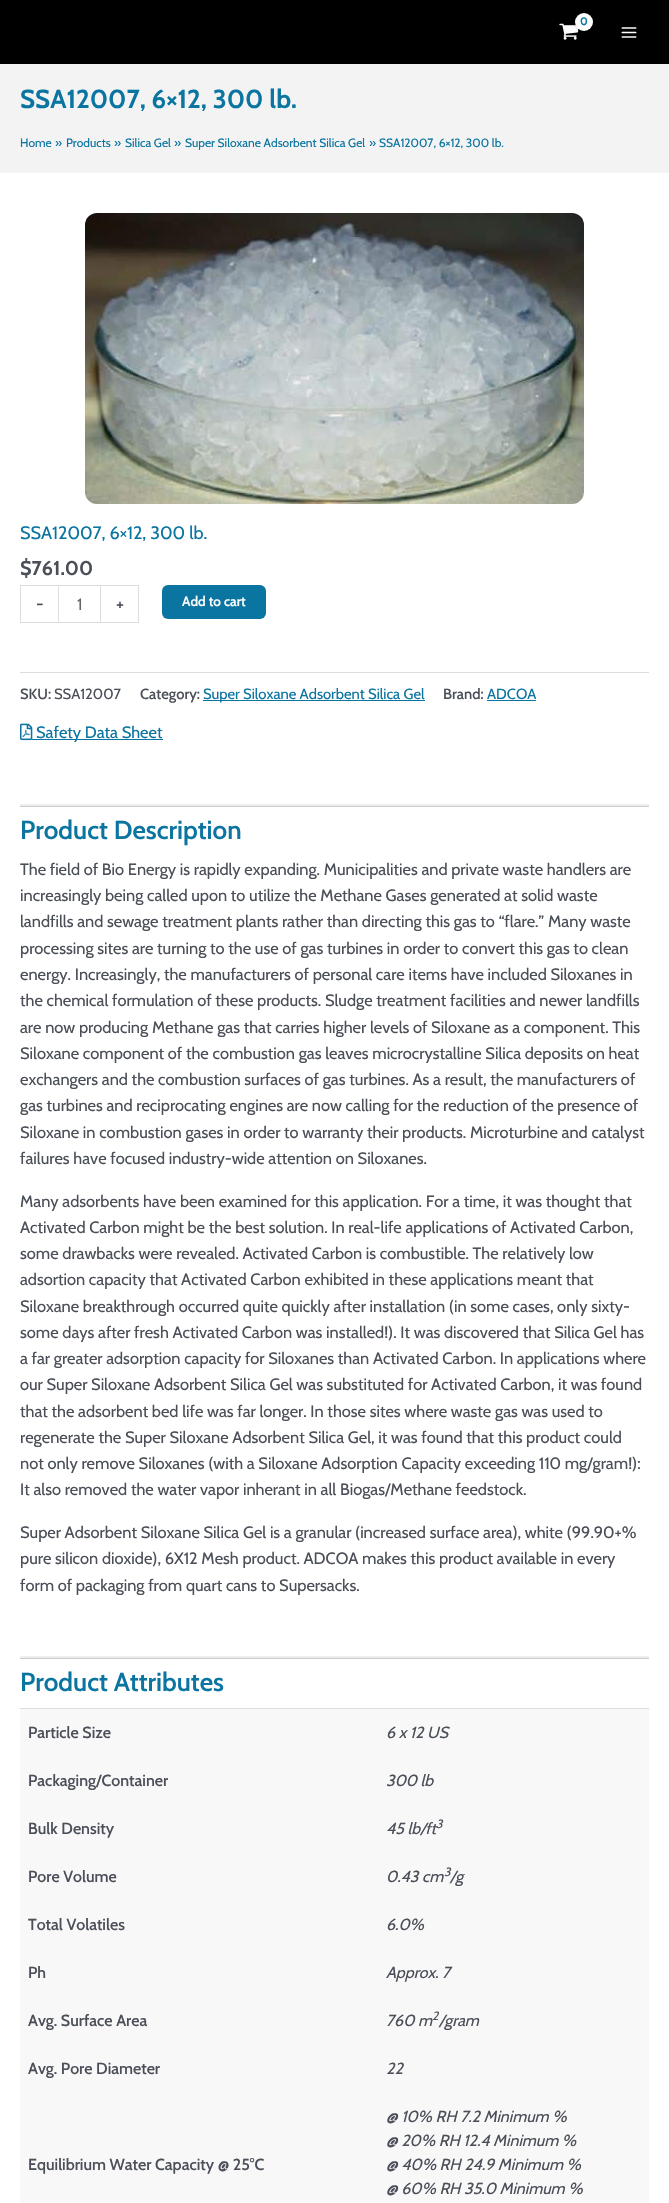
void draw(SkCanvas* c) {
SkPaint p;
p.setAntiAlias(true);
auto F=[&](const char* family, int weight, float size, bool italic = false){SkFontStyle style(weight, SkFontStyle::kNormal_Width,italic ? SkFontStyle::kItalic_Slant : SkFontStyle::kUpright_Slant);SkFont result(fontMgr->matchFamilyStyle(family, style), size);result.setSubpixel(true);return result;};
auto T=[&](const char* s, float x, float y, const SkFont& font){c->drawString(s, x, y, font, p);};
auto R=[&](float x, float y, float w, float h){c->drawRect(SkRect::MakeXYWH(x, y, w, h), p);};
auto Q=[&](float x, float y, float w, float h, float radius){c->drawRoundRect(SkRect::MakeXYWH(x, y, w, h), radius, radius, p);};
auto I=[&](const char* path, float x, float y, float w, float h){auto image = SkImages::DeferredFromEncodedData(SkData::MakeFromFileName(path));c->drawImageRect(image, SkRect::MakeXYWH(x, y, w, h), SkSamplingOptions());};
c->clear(0xffffffff);
p.setColor(0xff000000);
R(0,0,669,64);
I("1.png",559,23,20,17);
p.setColor(0x4d000000);
p.setMaskFilter(SkMaskFilter::MakeBlur(kNormal_SkBlurStyle, 1.5));
c->drawRoundRect(SkRect::MakeXYWH(576,14,18,18),9,9,p);
p.setMaskFilter(nullptr);
p.setColor(0xffffffff);
c->drawCircle(584,22,9,p);
auto f1 = F("Cabin",700,11);
p.setColor(0xff0b75a1);
T("0",580,25,f1);
I("2.png",621,27,16,11);
p.setColor(0xfff3f3f3);
R(0,64,669,109);
auto f2 = F("Cabin",700,26);
p.setColor(0xff0b75a1);
T("SSA12007, 6×12, 300 lb.",20,108,f2);
auto f3 = F("Cabin",400,12);
T("Home",20,147,f3);
T("»",55,147,f3);
T("Products",66,147,f3);
T("»",114,147,f3);
T("Silica Gel",125,147,f3);
T("»",174,147,f3);
T("Super Siloxane Adsorbent Silica Gel",185,147,f3);
T("»",369,147,f3);
T("SSA12007, 6×12, 300 lb.",379,147,f3);
I("3.png",85,213,499,291);
auto f4 = F("Cabin",400,18);
T("SSA12007, 6×12, 300 lb.",20,539,f4);
auto f5 = F("Cabin",700,20);
p.setColor(0xff4b4f58);
T("$761.00",20,575,f5);
p.setColor(0xffdddddd);
R(20,585,38,1);
R(20,622,38,1);
R(20,585,1,38);
p.setColor(0xff4b4f58);
T("-",36,610,f4);
p.setStroke(true);
p.setStrokeWidth(1);
p.setColor(0xffdddddd);
c->drawRect(SkRect::MakeXYWH(58.5,585.5,42,37),p);
auto f6 = F("Cabin",400,16.4);
p.setStroke(false);
p.setColor(0xff666666);
T("1",77,610,f6);
p.setColor(0xffdddddd);
R(101,585,38,1);
R(138,585,1,38);
R(101,622,38,1);
p.setColor(0xff4b4f58);
T("+",116,610,f4);
p.setColor(0xff0b75a1);
Q(162,585,104,34,6);
auto f7 = F("Cabin",600,13.5);
p.setColor(0xffffffff);
T("Add to cart",182,606,f7);
p.setColor(0xffdddddd);
R(20,672,629,1);
auto f8 = F("Cabin",500,14.75);
p.setColor(0xff4b4f58);
T("SKU:",20,699,f8);
auto f9 = F("Cabin",400,14.75);
T("SSA12007",54,699,f9);
T("Category:",140,699,f8);
p.setColor(0xff0b75a1);
R(203,700,222,1);
T("Super Siloxane Adsorbent Silica Gel",203,699,f9);
p.setColor(0xff4b4f58);
T("Brand:",443,699,f8);
p.setColor(0xff0b75a1);
T("ADCOA",487,699,f9);
R(487,700,49,1);
I("4.png",20,723,13,18);
R(32,739,131,1);
T("Safety Data Sheet",36,738,f6);
p.setColor(0xffcccccc);
R(20,806,629,1);
p.setColor(0xffeeeeee);
R(20,804,629,2);
auto f10 = F("Cabin",600,26);
p.setColor(0xff0b75a1);
T("Product Description",20,839,f10);
p.setColor(0xff4b4f58);
T("The field of Bio Energy is rapidly expanding. Municipalities and private waste handlers are",20,875,f6);
T("increasingly being called upon to utilize the Methane Gases generated at solid waste",20,901,f6);
T("landfills and sewage treatment plants rather than directing this gas to “flare.” Many waste",20,927,f6);
T("processing sites are turning to the use of gas turbines in order to convert this gas to clean",20,954,f6);
T("energy. Increasingly, the manufacturers of personal care items have included Siloxanes in",20,980,f6);
T("the chemical formulation of these products. Sludge treatment facilities and newer landfills",20,1006,f6);
T("are now producing Methane gas that carries higher levels of Siloxane as a component. This",20,1033,f6);
T("Siloxane component of the combustion gas leaves microcrystalline Silica deposits on heat",20,1059,f6);
T("exchangers and the combustion surfaces of gas turbines. As a result, the manufacturers of",20,1085,f6);
T("gas turbines and reciprocating engines are now calling for the reduction of the presence of",20,1111,f6);
T("Siloxane in combustion gases in order to warranty their products. Microturbine and catalyst",20,1138,f6);
T("failures have focused industry-wide attention on Siloxanes.",20,1164,f6);
T("Many adsorbents have been examined for this application. For a time, it was thought that",20,1207,f6);
T("Activated Carbon might be the best solution. In real-life applications of Activated Carbon,",20,1233,f6);
T("some drawbacks were revealed. Activated Carbon is combustible. The relatively low",20,1259,f6);
T("adsortion capacity that Activated Carbon exhibited in these applications meant that",20,1285,f6);
T("Siloxane breakthrough occurred quite quickly after installation (in some cases, only sixty-",20,1312,f6);
T("some days after fresh Activated Carbon was installed!). It was discovered that Silica Gel has",20,1338,f6);
T("a far greater adsorption capacity for Siloxanes than Activated Carbon. In applications where",20,1364,f6);
T("our Super Siloxane Adsorbent Silica Gel was substituted for Activated Carbon, it was found",20,1390,f6);
T("that the adsorbent bed life was far longer. In those sites where waste gas was used to",20,1417,f6);
T("regenerate the Super Siloxane Adsorbent Silica Gel, it was found that this product could",20,1443,f6);
T("not only remove Siloxanes (with a Siloxane Adsorption Capacity exceeding 110 mg/gram!):",20,1469,f6);
T("It also removed the water vapor inherant in all Biogas/Methane feedstock.",20,1495,f6);
T("Super Adsorbent Siloxane Silica Gel is a granular (increased surface area), white (99.90+%",20,1538,f6);
T("pure silicon dioxide), 6X12 Mesh product. ADCOA makes this product available in every",20,1564,f6);
T("form of packaging from quart cans to Supersacks.",20,1591,f6);
p.setColor(0xffcccccc);
R(20,1658,629,1);
p.setColor(0xffeeeeee);
R(20,1656,629,2);
p.setColor(0xff0b75a1);
T("Product Attributes",20,1691,f10);
p.setColor(0xffdddddd);
R(20,1708,629,1);
p.setColor(0xfff8f8f9);
R(20,1709,629,48);
auto f11 = F("Cabin",500,16);
p.setColor(0xff4b4f58);
T("Particle Size",28,1738,f11);
auto f12 = F("Cabin",400,16,true);
T("6 x 12 US",386,1738,f12);
p.setColor(0xfff8f8f9);
R(20,1757,629,48);
p.setColor(0xff4b4f58);
T("Packaging/Container",28,1786,f11);
T("300 lb",386,1786,f12);
p.setColor(0xfff8f8f9);
R(20,1805,629,48);
p.setColor(0xff4b4f58);
T("Bulk Density",28,1834,f11);
T("45 lb/ft",386,1834,f12);
auto f13 = F("Cabin",400,12,true);
T("3",436,1828,f13);
p.setColor(0xfff8f8f9);
R(20,1853,629,48);
p.setColor(0xff4b4f58);
T("Pore Volume",28,1882,f11);
T("0.43 cm",386,1882,f12);
T("/g",450,1882,f12);
T("3",444,1876,f13);
p.setColor(0xfff8f8f9);
R(20,1901,629,48);
p.setColor(0xff4b4f58);
T("Total Volatiles",28,1930,f11);
T("6.0%",386,1930,f12);
p.setColor(0xfff8f8f9);
R(20,1949,629,48);
p.setColor(0xff4b4f58);
T("Ph",28,1978,f11);
T("Approx. 7",386,1978,f12);
p.setColor(0xfff8f8f9);
R(20,1997,629,48);
p.setColor(0xff4b4f58);
T("Avg. Surface Area",28,2026,f11);
T("760 m",386,2026,f12);
T("/gram",439,2026,f12);
T("2",432,2020,f13);
p.setColor(0xfff8f8f9);
R(20,2045,629,158);
p.setColor(0xff4b4f58);
T("Avg. Pore Diameter",28,2074,f11);
T("22",386,2074,f12);
T("Equilibrium Water Capacity @ 25°C",28,2170,f11);
T("@ 10% RH 7.2 Minimum %",386,2122,f12);
T("@ 20% RH 12.4 Minimum %",386,2146,f12);
T("@ 40% RH 24.9 Minimum %",386,2170,f12);
T("@ 60% RH 35.0 Minimum %",386,2194,f12);
}
